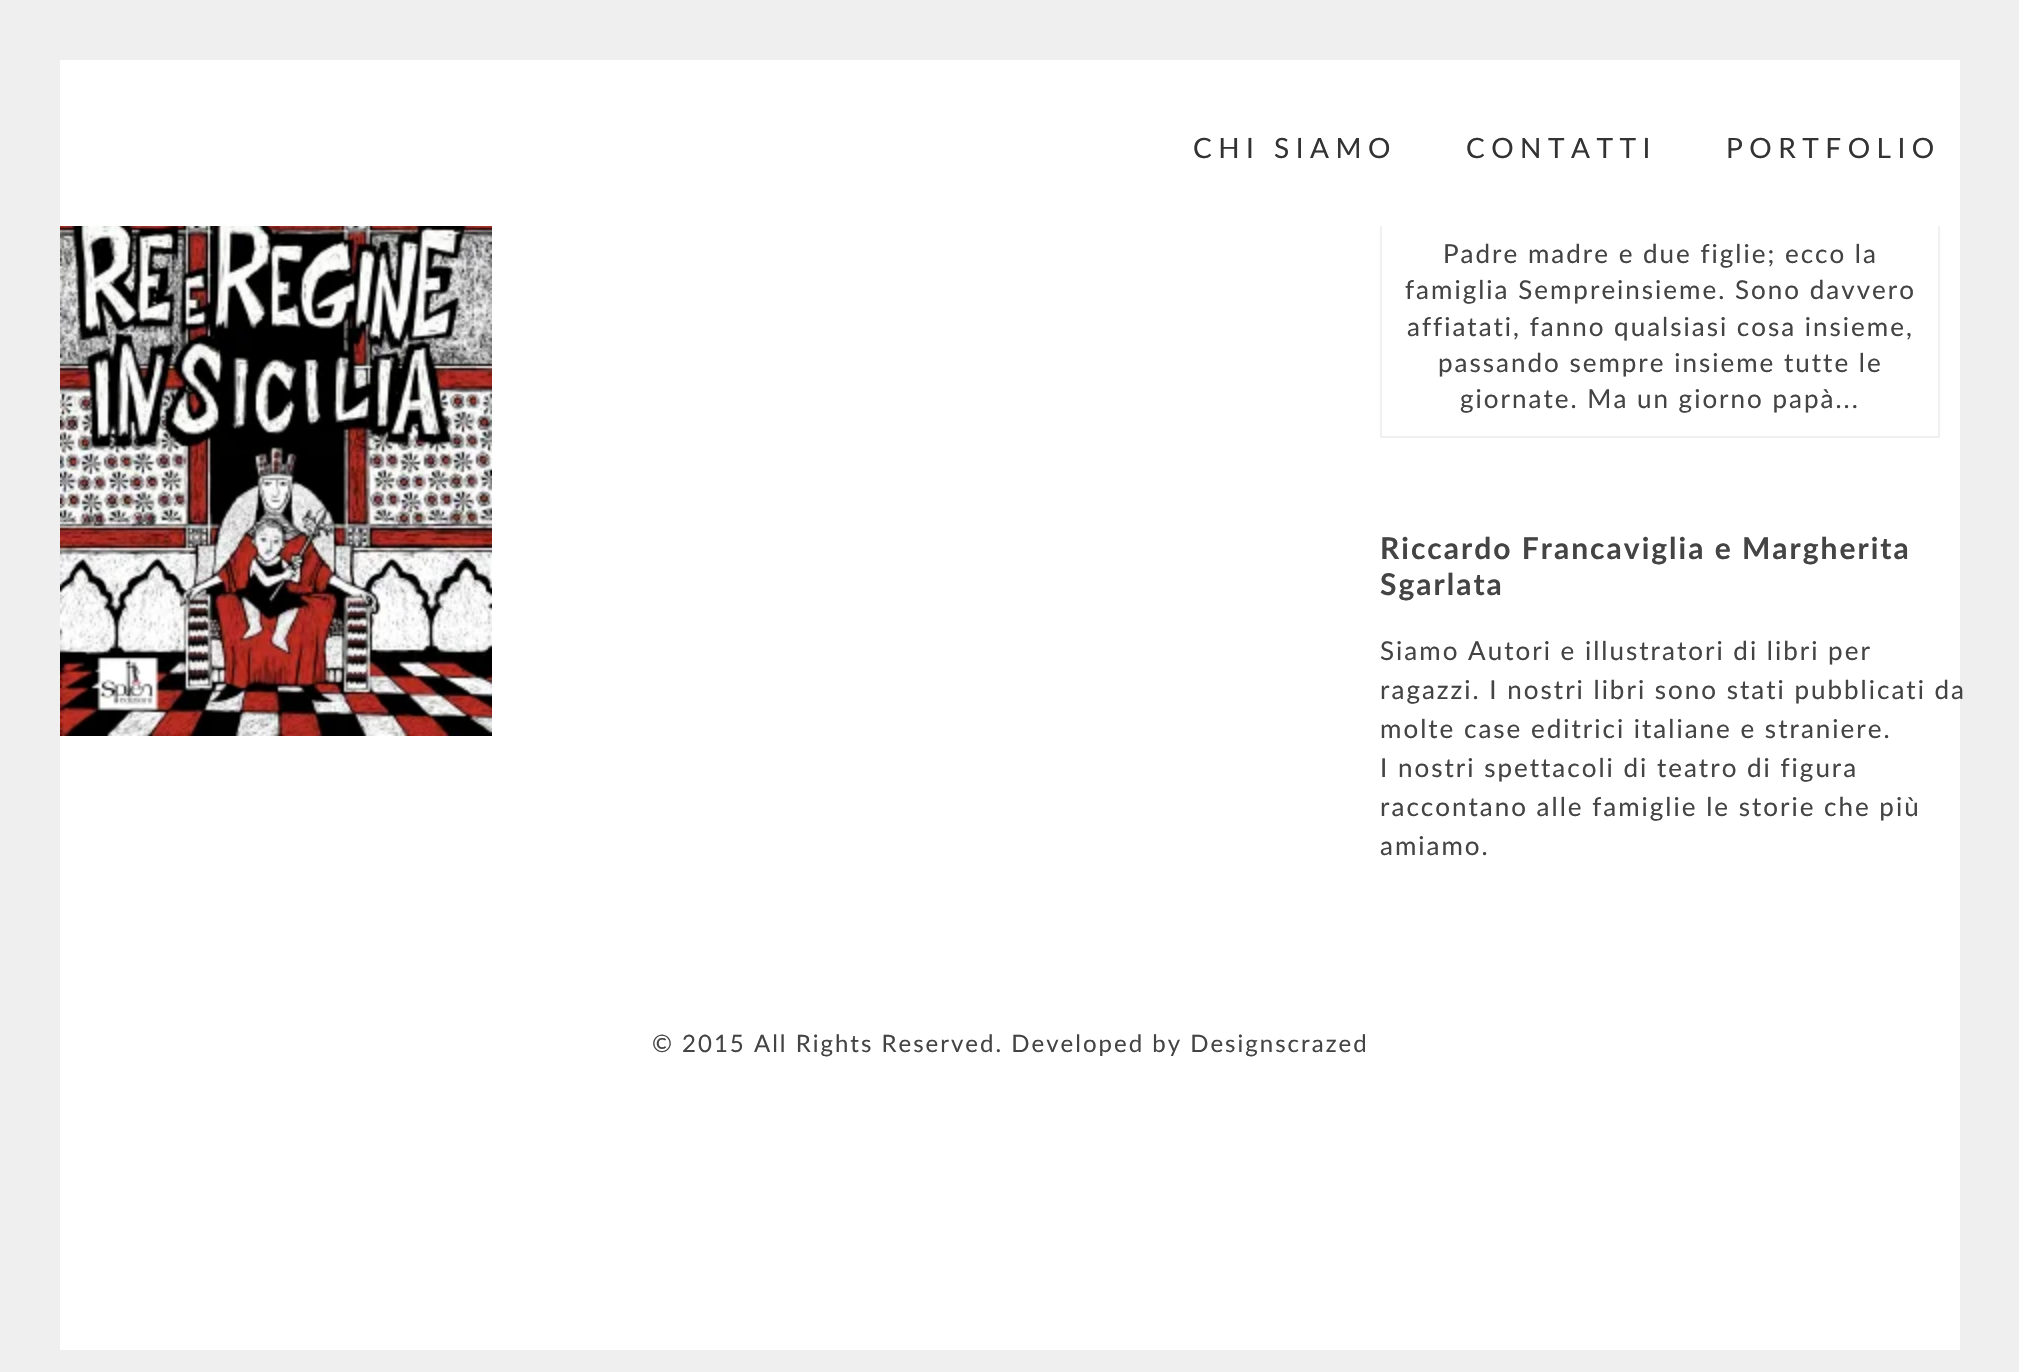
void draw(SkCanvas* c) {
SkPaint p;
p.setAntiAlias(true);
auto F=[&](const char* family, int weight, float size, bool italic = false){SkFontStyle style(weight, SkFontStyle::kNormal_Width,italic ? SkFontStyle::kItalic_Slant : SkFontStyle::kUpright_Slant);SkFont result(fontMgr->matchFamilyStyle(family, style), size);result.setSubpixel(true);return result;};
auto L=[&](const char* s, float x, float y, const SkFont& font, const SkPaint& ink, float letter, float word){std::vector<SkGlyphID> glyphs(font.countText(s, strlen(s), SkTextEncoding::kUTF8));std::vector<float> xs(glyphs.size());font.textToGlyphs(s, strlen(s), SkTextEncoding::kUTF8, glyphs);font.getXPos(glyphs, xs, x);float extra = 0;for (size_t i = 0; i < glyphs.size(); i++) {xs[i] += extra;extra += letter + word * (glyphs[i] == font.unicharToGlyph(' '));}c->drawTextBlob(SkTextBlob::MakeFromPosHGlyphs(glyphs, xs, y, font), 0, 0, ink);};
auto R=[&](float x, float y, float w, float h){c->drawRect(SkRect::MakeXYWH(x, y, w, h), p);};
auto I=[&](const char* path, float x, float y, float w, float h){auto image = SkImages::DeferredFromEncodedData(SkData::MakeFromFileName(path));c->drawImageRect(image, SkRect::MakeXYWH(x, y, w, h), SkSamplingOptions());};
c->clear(0xffffffff);
p.setStroke(true);
p.setStrokeWidth(60);
p.setColor(0xffefefef);
c->drawRect(SkRect::MakeXYWH(30,30,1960,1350),p);
p.setStrokeWidth(2);
p.setColor(0xfff0f0f0);
c->drawRect(SkRect::MakeXYWH(1381,187,558,250),p);
p.setStroke(false);
p.setColor(0xffffffff);
R(1380,186,560,40);
auto f1 = F("Lato",400,28);
p.setColor(0xff333333);
L("CHI SIAMO",1193,158,f1,p,6.5,0);
L("CONTATTI",1466,158,f1,p,6.5,0);
L("PORTFOLIO",1726,158,f1,p,6.5,0);
I("1.png",60,226,432,510);
auto f2 = F("Lato",400,26);
p.setColor(0xff444444);
L("Padre madre e due figlie; ecco la",1443,263,f2,p,2,0);
L("famiglia Sempreinsieme. Sono davvero",1405,299,f2,p,2,0);
L("affiatati, fanno qualsiasi cosa insieme,",1407,336,f2,p,2,0);
L("passando sempre insieme tutte le",1438,372,f2,p,2,0);
L("giornate. Ma un giorno papà...",1460,408,f2,p,2,0);
auto f3 = F("Lato",700,30);
L("Riccardo Francaviglia e Margherita",1380,559,f3,p,2,0);
L("Sgarlata",1380,595,f3,p,2,0);
L("Siamo Autori e illustratori di libri per",1380,660,f2,p,2,0);
L("ragazzi. I nostri libri sono stati pubblicati da",1380,699,f2,p,2,0);
L("molte case editrici italiane e straniere.",1380,738,f2,p,2,0);
L("I nostri spettacoli di teatro di figura",1380,777,f2,p,2,0);
L("raccontano alle famiglie le storie che più",1380,816,f2,p,2,0);
L("amiamo.",1380,855,f2,p,2,0);
auto f4 = F("Lato",400,24);
L("© 2015 All Rights Reserved. Developed by Designscrazed",652,1052,f4,p,2,0);
}
